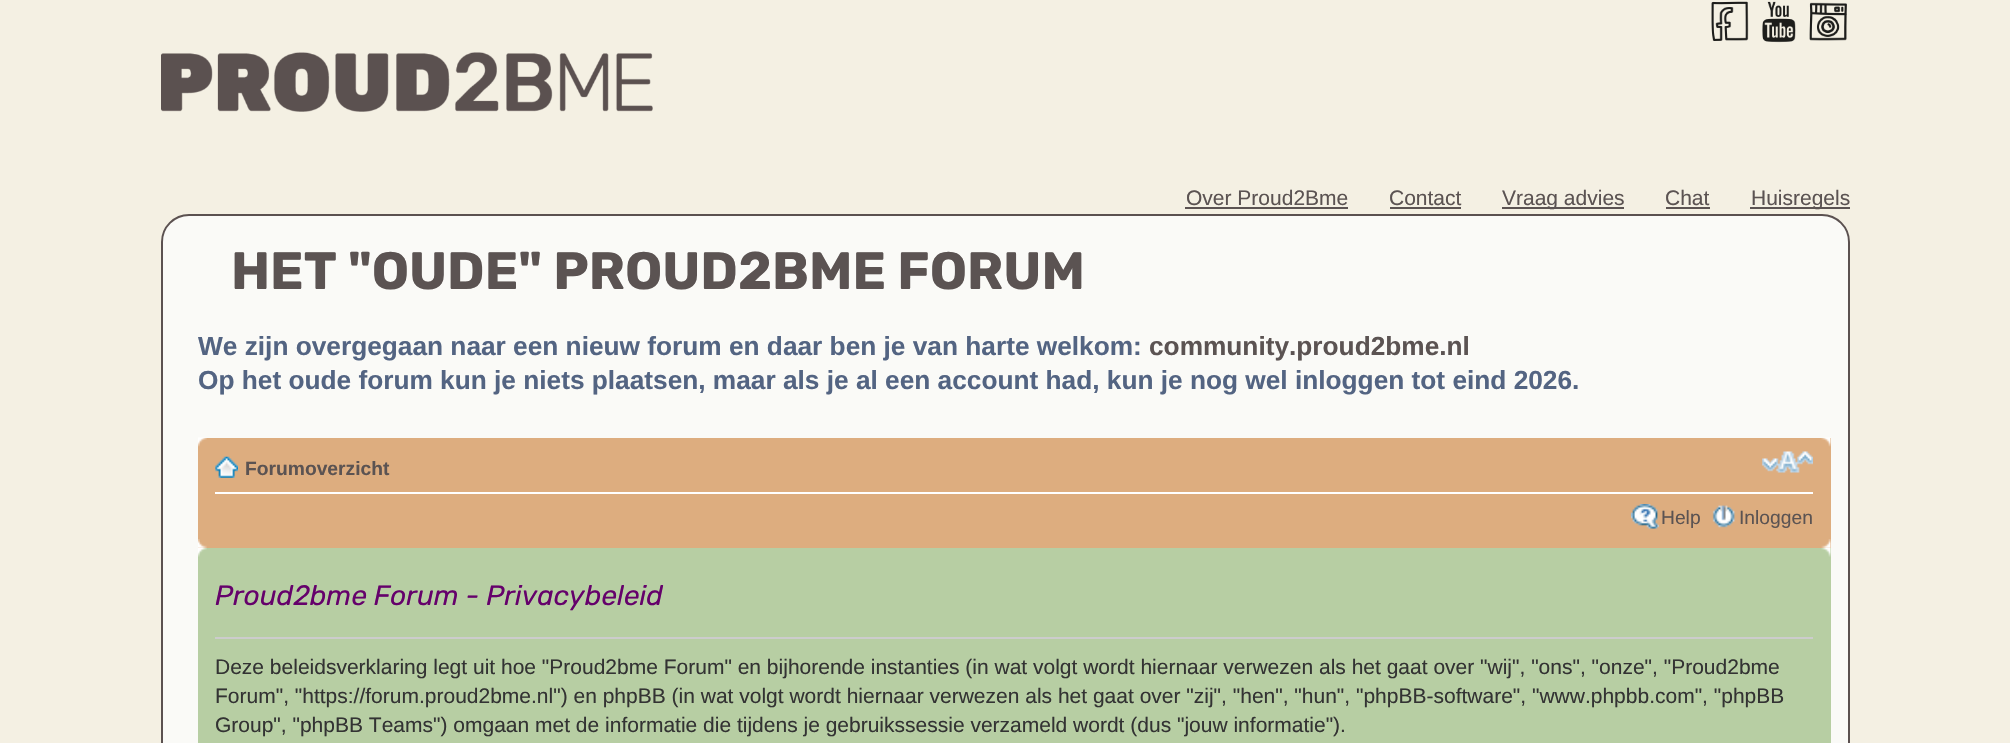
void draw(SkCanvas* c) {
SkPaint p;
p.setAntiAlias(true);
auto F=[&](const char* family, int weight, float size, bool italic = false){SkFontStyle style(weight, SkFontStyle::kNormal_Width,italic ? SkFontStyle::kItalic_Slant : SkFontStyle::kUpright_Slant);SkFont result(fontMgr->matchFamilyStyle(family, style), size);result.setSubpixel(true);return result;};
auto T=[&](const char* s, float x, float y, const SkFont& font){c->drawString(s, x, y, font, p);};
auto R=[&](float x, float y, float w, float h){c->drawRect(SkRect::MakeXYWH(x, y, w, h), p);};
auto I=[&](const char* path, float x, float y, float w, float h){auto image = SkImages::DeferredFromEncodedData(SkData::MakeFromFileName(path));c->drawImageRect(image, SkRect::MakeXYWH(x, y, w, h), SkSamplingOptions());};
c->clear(0xfff4f0e3);
I("1.png",1711,1,38,40);
I("2.png",1762,1,34,42);
I("3.png",1809,2,38,39);
I("4.png",161,52,492,60);
auto f1 = F("Liberation Sans",400,21);
p.setColor(0xff5b5352);
T("Over Proud2Bme",1186,205,f1);
R(1185,207,163,2);
T("Contact",1389,205,f1);
R(1390,207,71,2);
R(1502,207,122,2);
T("Vraag advies",1502,205,f1);
T("Chat",1665,205,f1);
R(1666,207,44,2);
R(1750,207,100,2);
T("Huisregels",1751,205,f1);
p.setColor(0xfffafaf7);
c->drawRoundRect(SkRect::MakeXYWH(162,215,1687,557),27,27,p);
p.setStroke(true);
p.setStrokeWidth(2);
p.setColor(0xff5b5150);
c->drawRoundRect(SkRect::MakeXYWH(162,215,1687,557),27,27,p);
auto f2 = F("Rubik",700,52.5);
p.setStroke(false);
p.setColor(0xff5b5352);
T("HET \"OUDE\" PROUD2BME FORUM",231,289,f2);
auto f3 = F("Liberation Sans",700,26.25);
p.setColor(0xff536482);
T("We zijn overgegaan naar een nieuw forum en daar ben je van harte welkom:",198,355,f3);
p.setColor(0xff5b5352);
T("community.proud2bme.nl",1149,355,f3);
p.setColor(0xff536482);
T("Op het oude forum kun je niets plaatsen, maar als je al een account had, kun je nog wel inloggen tot eind 2026.",198,389,f3);
p.setColor(0xffddad7f);
R(198,438,1633,110);
I("5.png",198,437,9,10);
I("6.png",1821,437,10,10);
p.setColor(0xffffffff);
R(215,492,1598,2);
I("7.png",215,456,23,22);
auto f4 = F("Liberation Sans",700,19.25);
p.setColor(0xff5b5352);
T("Forumoverzicht",245,475,f4);
I("8.png",1762,451,51,22);
I("9.png",1631,504,28,25);
auto f5 = F("Liberation Sans",400,19.25);
T("Help",1661,524,f5);
I("10.png",1712,505,23,23);
T("Inloggen",1739,524,f5);
I("11.png",198,539,9,9);
I("12.png",1821,539,10,9);
p.setColor(0xffb7cea3);
R(198,548,1633,195);
I("13.png",198,547,9,10);
I("14.png",1821,547,10,10);
p.setColor(0xffcccccc);
R(215,637,1598,2);
auto f6 = F("Rubik",400,28,true);
p.setColor(0xff65016b);
T("Proud2bme Forum - Privacybeleid",215,605,f6);
p.setColor(0xff333333);
T("Deze beleidsverklaring legt uit hoe \"Proud2bme Forum\" en bijhorende instanties (in wat volgt wordt hiernaar verwezen als het gaat over \"wij\", \"ons\", \"onze\", \"Proud2bme",215,674,f1);
T("Forum\", \"https://forum.proud2bme.nl\") en phpBB (in wat volgt wordt hiernaar verwezen als het gaat over \"zij\", \"hen\", \"hun\", \"phpBB-software\", \"www.phpbb.com\", \"phpBB",215,703,f1);
T("Group\", \"phpBB Teams\") omgaan met de informatie die tijdens je gebruikssessie verzameld wordt (dus \"jouw informatie\").",215,732,f1);
}
